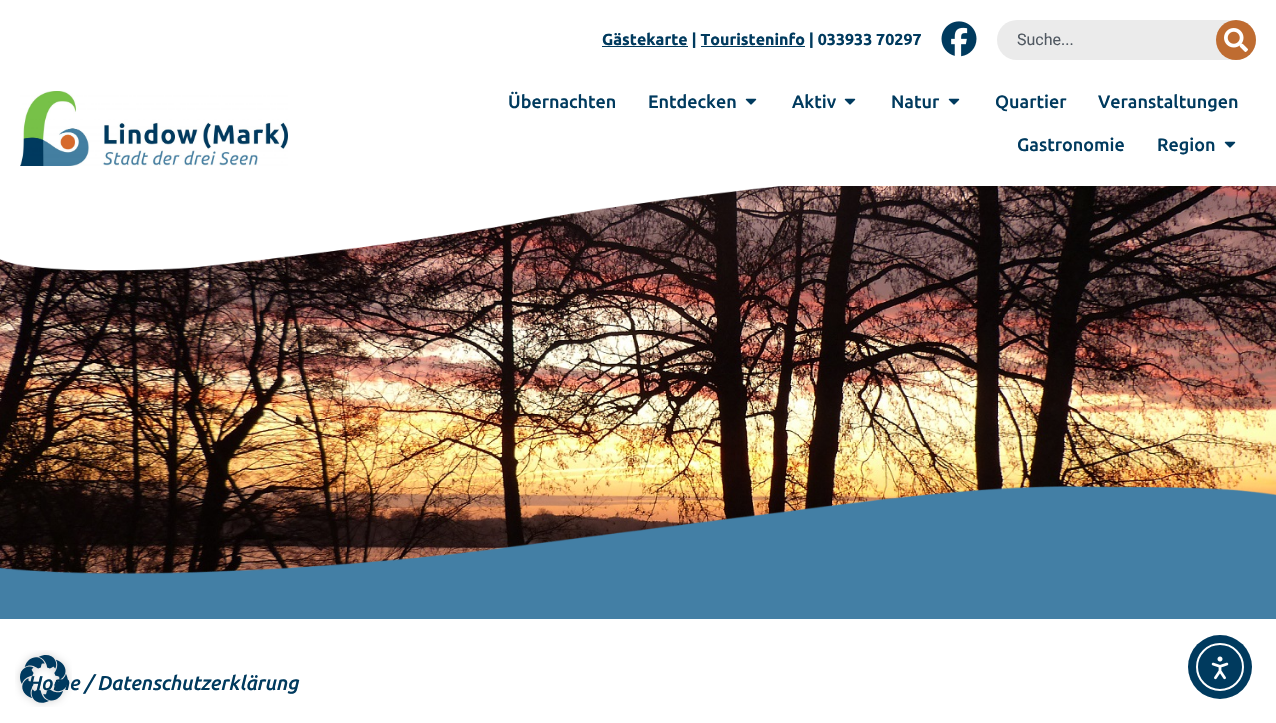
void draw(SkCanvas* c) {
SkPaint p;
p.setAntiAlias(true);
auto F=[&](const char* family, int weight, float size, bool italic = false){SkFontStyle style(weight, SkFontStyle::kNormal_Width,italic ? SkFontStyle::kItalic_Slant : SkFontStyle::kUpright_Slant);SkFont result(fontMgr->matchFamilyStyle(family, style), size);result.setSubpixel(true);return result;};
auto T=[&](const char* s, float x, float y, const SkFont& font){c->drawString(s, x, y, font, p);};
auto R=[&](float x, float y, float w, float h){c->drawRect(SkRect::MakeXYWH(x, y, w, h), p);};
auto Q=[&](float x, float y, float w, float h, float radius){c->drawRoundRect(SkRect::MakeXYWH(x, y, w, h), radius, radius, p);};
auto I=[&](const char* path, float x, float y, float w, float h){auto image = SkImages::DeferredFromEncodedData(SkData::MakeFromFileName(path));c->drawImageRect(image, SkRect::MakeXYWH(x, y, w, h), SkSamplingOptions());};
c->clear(0xffffffff);
I("1.png",20,91,268,75);
p.setColor(0xff003a5e);
R(602,46,86,1);
auto f1 = F("Ubuntu",700,16);
T("Gästekarte | Touristeninfo | 033933 70297",602,45,f1);
R(701,46,104,1);
I("2.png",941,21,36,36);
p.setColor(0xffebebeb);
Q(997,20,259,40,20);
auto f2 = F("Roboto",400,16);
p.setColor(0xff515962);
T("Suche...",1017,45,f2);
p.setColor(0xffbf6c31);
c->drawCircle(1236,40,20,p);
I("3.png",1224,28,24,24);
auto f3 = F("Ubuntu",500,18);
p.setColor(0xff003a5e);
T("Übernachten",508,108,f3);
T("Entdecken",648,108,f3);
I("4.png",745,98,12,7);
T("Aktiv",792,108,f3);
I("4.png",844,98,12,7);
T("Natur",891,108,f3);
I("4.png",948,98,12,7);
T("Quartier",995,108,f3);
T("Veranstaltungen",1098,108,f3);
T("Gastronomie",1017,151,f3);
T("Region",1157,151,f3);
I("4.png",1224,141,12,7);
I("8.png",0,186,1276,388);
I("5.png",0,186,786,85);
auto f4 = F("Ubuntu",500,20,true);
T("Home / Datenschutzerklärung",27,690,f4);
I("6.png",15,650,57,57);
c->drawCircle(1220,667,32,p);
p.setStroke(true);
p.setStrokeWidth(2);
p.setColor(0xffffffff);
c->drawCircle(1220,667,23,p);
I("7.png",1211,656,18,24);
I("9.png",0,486,1276,133);
}
